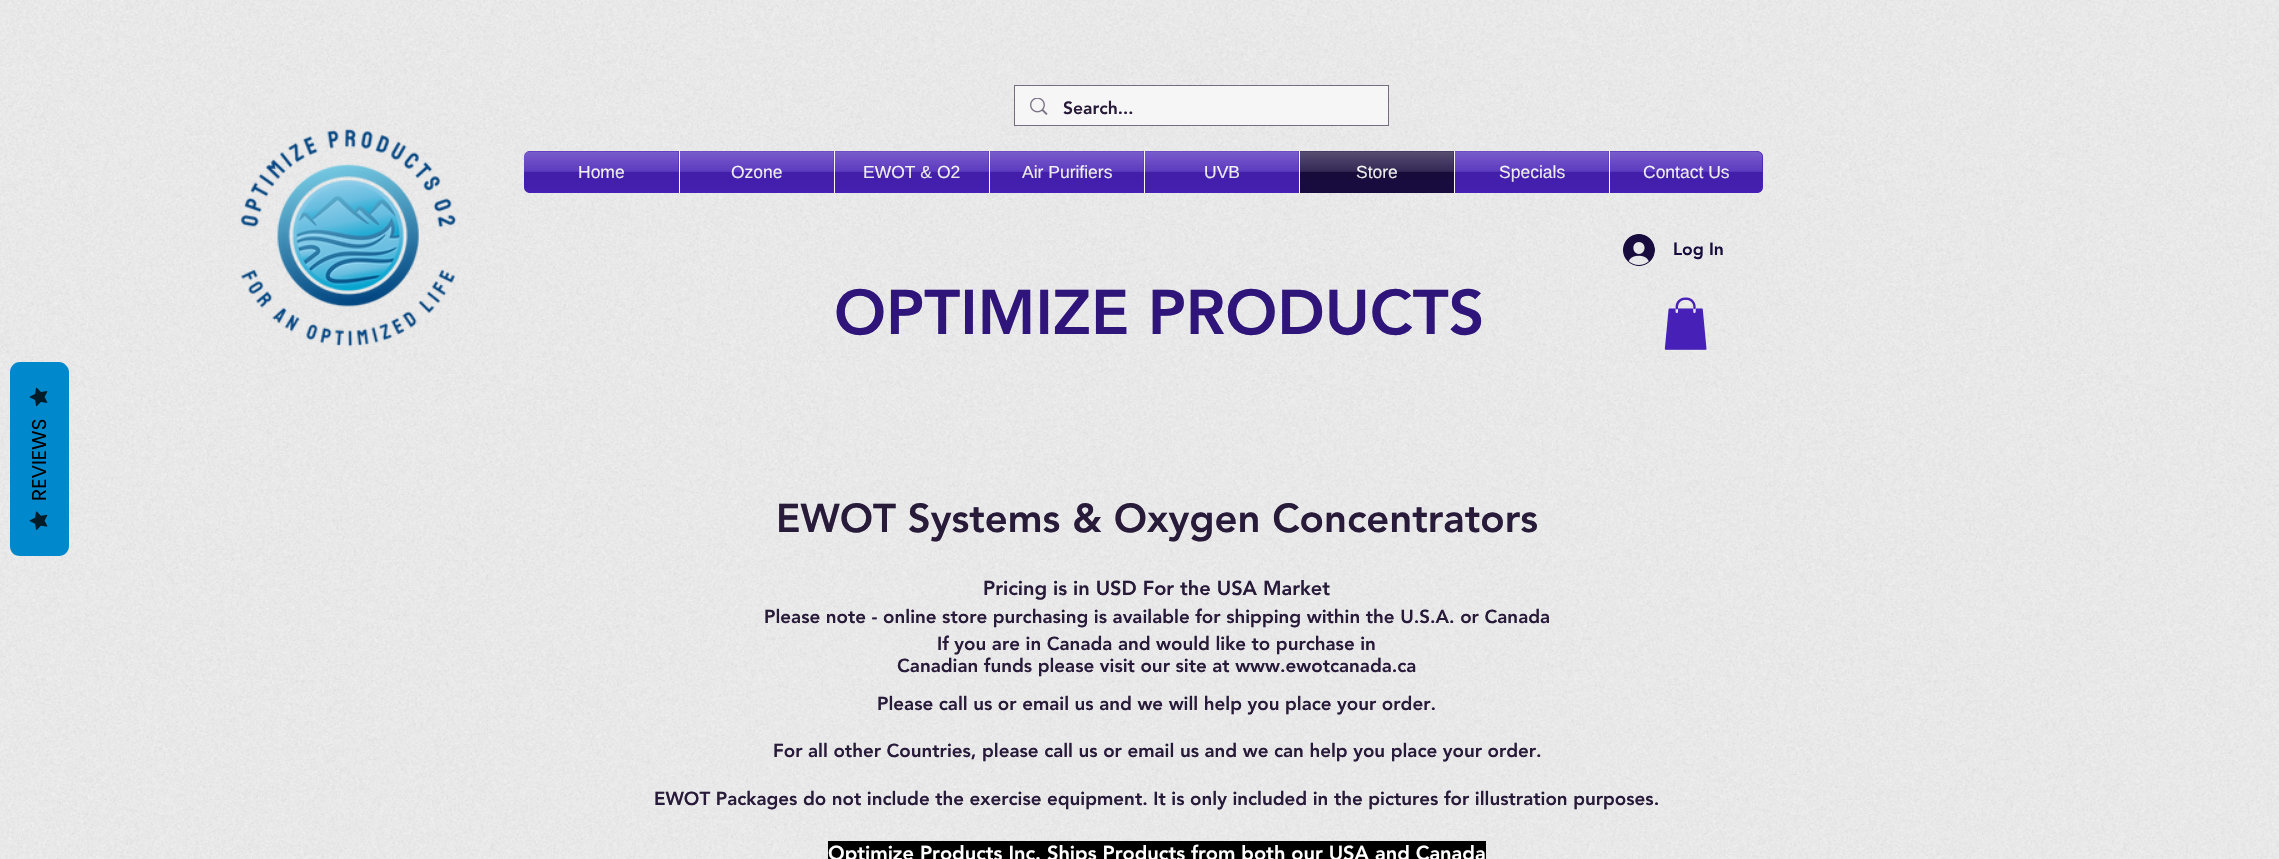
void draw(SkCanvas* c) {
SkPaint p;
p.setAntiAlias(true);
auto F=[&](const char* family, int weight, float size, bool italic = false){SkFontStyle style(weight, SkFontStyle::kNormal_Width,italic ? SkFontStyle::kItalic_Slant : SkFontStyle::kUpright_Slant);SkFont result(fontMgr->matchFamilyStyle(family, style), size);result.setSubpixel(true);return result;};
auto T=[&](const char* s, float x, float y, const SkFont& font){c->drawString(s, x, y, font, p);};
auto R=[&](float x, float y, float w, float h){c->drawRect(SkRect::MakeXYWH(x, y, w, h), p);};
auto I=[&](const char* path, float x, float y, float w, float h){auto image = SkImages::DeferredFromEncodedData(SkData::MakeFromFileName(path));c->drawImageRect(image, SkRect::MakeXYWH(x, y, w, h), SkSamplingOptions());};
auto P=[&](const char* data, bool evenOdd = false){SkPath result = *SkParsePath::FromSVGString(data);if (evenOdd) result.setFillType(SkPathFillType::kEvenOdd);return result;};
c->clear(0xfff6f6f6);
I("3.png",0,0,2279,859);
p.setColor(0xff0088cc);
c->drawPath(P("M10 546v-174c0-5 4-10 10-10h39c5 0 10 5 10 10v174c0 6-5 10-10 10h-39c-6 0-10-4-10-10z"),p);
I("1.png",29,387,19,20);
auto f1 = F("Poppins",400,20);
p.setColor(0xff000000);
c->save();
c->rotate(-90,46,501);
T("REVIEWS",46,501,f1);
c->restore();
I("2.png",29,511,19,19);
p.setStroke(true);
p.setStrokeWidth(1);
p.setColor(0x99281a39);
c->drawRect(SkRect::MakeXYWH(1014.5,85.5,374,40),p);
p.setStroke(false);
p.setColor(0xfff6f6f6);
R(1015,86,373,39);
I("4.png",1030,98,18,17);
auto f2 = F("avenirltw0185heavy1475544",900,17.5);
p.setColor(0xff281a39);
T("Search...",1063,114,f2);
I("5.png",240,128,217,219);
I("6.png",524,151,1239,38);
p.setColor(0xff4720b7);
c->drawPath(P("M530 151h149v42h-149c-3.5 0-6-2.5-6-6v-30c0-3.5 2.5-6 6-6z"),p);
auto f3 = F("Liberation Sans",400,17.5);
p.setColor(0xfff6f6f6);
T("Home",578,178,f3);
I("7.png",524,151,155,41);
p.setColor(0xff4720b7);
R(680,151,154,42);
p.setColor(0xfff6f6f6);
R(679,151,1,42);
T("Ozone",731,178,f3);
I("8.png",680,151,154,41);
p.setColor(0xff4720b7);
R(835,151,154,42);
p.setColor(0xfff6f6f6);
R(834,151,1,42);
T("EWOT & O2",863,178,f3);
I("9.png",835,151,154,41);
p.setColor(0xff4720b7);
R(990,151,154,42);
p.setColor(0xfff6f6f6);
R(989,151,1,42);
T("Air Purifiers",1022,178,f3);
I("10.png",990,151,154,41);
p.setColor(0xff4720b7);
R(1145,151,154,42);
p.setColor(0xfff6f6f6);
R(1144,151,1,42);
T("UVB",1204,178,f3);
I("11.png",1145,151,154,41);
p.setColor(0xff180b3d);
R(1300,151,154,42);
p.setColor(0xfff6f6f6);
R(1299,151,1,42);
T("Store",1356,178,f3);
I("12.png",1300,151,154,28);
p.setColor(0xff4720b7);
R(1455,151,154,42);
p.setColor(0xfff6f6f6);
R(1454,151,1,42);
T("Specials",1499,178,f3);
I("13.png",1455,151,154,41);
p.setColor(0xff4720b7);
c->drawPath(P("M1609 151h148c3.5 0 6 2.5 6 6v30c0 3.5-2.5 6-6 6h-148z"),p);
p.setColor(0xfff6f6f6);
R(1609,151,1,42);
T("Contact Us",1643,178,f3);
I("14.png",1610,151,153,41);
I("15.png",1623,234,32,32);
p.setColor(0xff180b3d);
T("Log In",1673,255,f2);
auto f4 = F("avenirltw0185heavy1475544",900,62.5);
p.setColor(0xff2f157a);
T("OPTIMIZE PRODUCTS",834,334,f4);
I("16.png",1664,297,43,53);
auto f5 = F("avenirltw0185heavy1475544",900,40);
p.setColor(0xff281a39);
T("EWOT Systems & Oxygen Concentrators",776,532,f5);
auto f6 = F("avenirltw0185heavy1475544",900,20);
T("Pricing is in USD For the USA Market",983,595,f6);
auto f7 = F("avenirltw0185heavy1475544",900,18.75);
T("Please note - online store purchasing is available for shipping within the U.S.A. or Canada",764,623,f7);
T("If you are in Canada and would like to purchase in",937,650,f7);
T("Canadian funds please visit our site at www.ewotcanada.ca",897,672,f7);
T("Please call us or email us and we will help you place your order.",877,710,f7);
T("For all other Countries, please call us or email us and we can help you place your order.",773,757,f7);
T("EWOT Packages do not include the exercise equipment. It is only included in the pictures for illustration purposes.",654,805,f7);
p.setColor(0xff000000);
R(828,841,658,18);
p.setColor(0xffffffff);
T("Optimize Products Inc. Ships Products from both our USA and Canada",828,860,f6);
}
